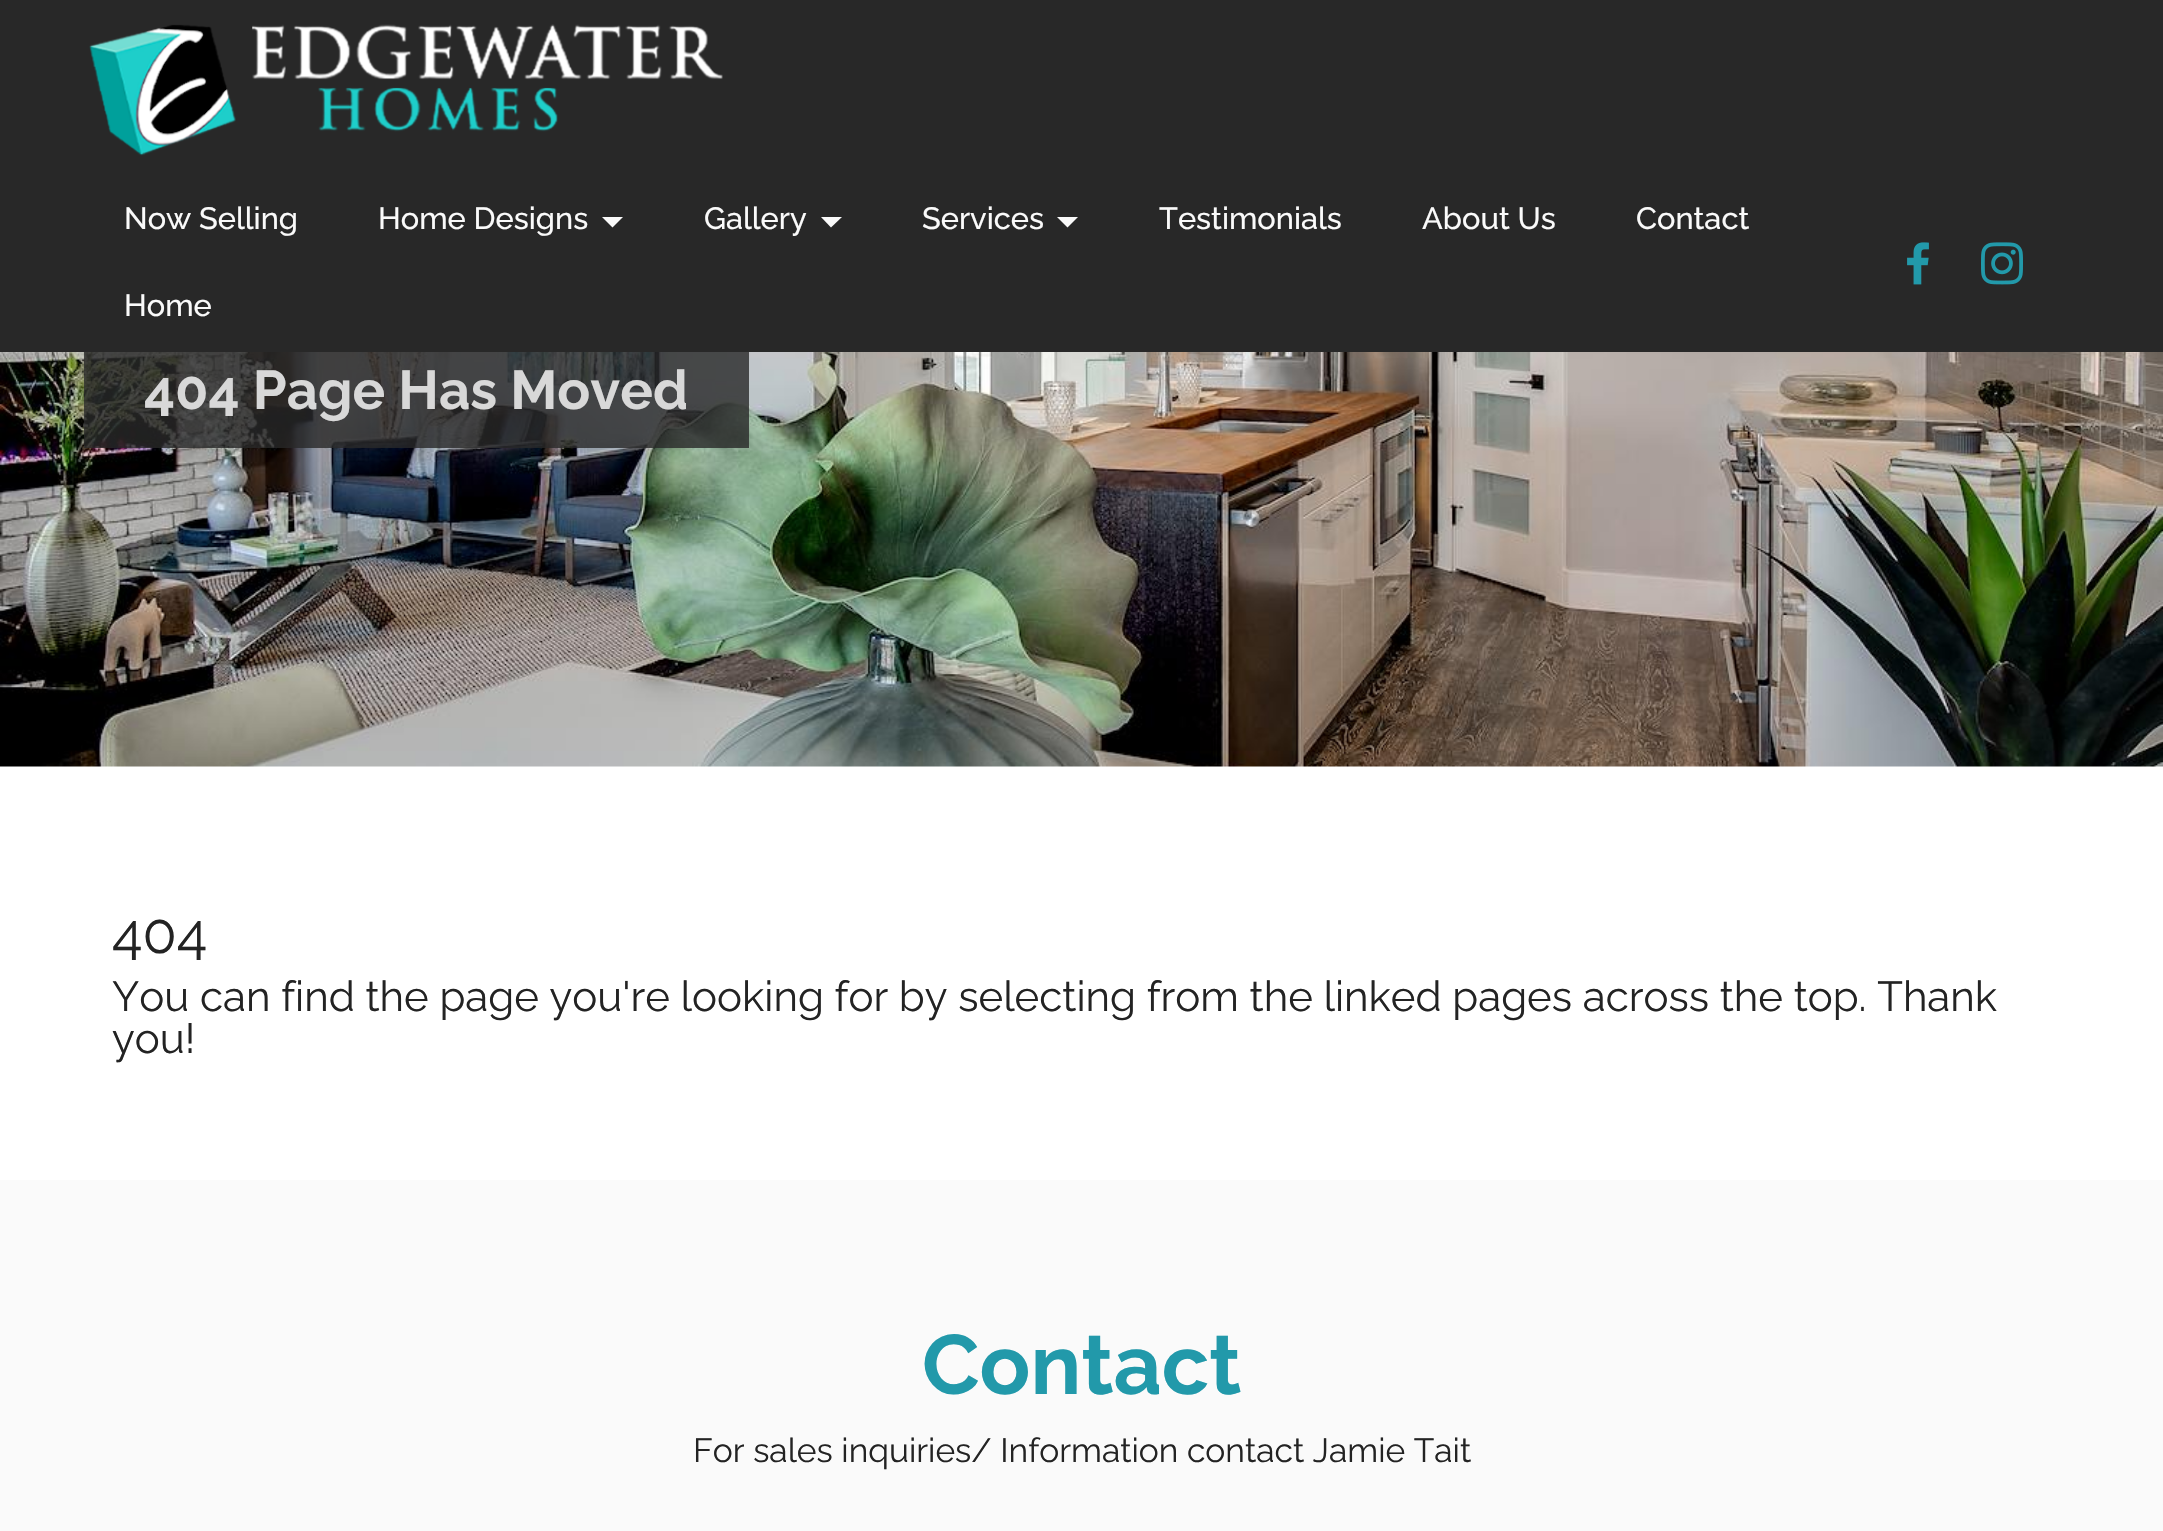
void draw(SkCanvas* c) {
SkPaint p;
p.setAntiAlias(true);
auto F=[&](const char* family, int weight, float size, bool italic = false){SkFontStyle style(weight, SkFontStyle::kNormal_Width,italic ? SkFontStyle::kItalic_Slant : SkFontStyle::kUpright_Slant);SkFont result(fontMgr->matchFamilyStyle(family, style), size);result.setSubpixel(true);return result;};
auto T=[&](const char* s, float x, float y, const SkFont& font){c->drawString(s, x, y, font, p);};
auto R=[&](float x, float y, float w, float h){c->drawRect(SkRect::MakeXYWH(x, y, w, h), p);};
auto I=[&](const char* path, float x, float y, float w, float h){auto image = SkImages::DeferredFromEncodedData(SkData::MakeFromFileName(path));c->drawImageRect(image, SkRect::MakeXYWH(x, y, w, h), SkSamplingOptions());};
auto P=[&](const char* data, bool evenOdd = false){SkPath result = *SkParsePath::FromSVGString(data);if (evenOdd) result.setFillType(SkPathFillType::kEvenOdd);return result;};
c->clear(0xffffffff);
p.setColor(0xff282828);
R(0,0,2163,352);
I("1.png",89,24,634,132);
auto f1 = F("Raleway",500,30.75);
p.setColor(0xfffafafa);
T("Now Selling",124,229,f1);
T("Home Designs",378,229,f1);
c->drawPath(P("M602 217h21l-10.5 10.5z"),p);
T("Gallery",704,229,f1);
c->drawPath(P("M821 217h21l-11 10.5z"),p);
T("Services",922,229,f1);
c->drawPath(P("M1057 217h21l-10.5 10.5z"),p);
T("Testimonials",1159,229,f1);
T("About Us",1422,229,f1);
T("Contact",1636,229,f1);
T("Home",124,316,f1);
I("2.png",1907,242,22,43);
I("3.png",1981,242,42,43);
I("4.png",0,352,2163,415);
p.setColor(0xcc282828);
R(84,352,665,96);
auto f2 = F("Raleway",700,54.5);
p.setColor(0xffd8d8d8);
T("404 Page Has Moved",144,409,f2);
auto f3 = F("Raleway",400,56);
p.setColor(0xff232323);
T("404",112,953,f3);
auto f4 = F("Raleway",400,42);
T("You can find the page you're looking for by selecting from the linked pages across the top. Thank",112,1011,f4);
T("you!",112,1053,f4);
p.setColor(0xfffafafa);
R(0,1180,2163,351);
auto f5 = F("Raleway",700,84);
p.setColor(0xff2299aa);
T("Contact",922,1394,f5);
auto f6 = F("Raleway",400,33.6);
p.setColor(0xff232323);
T("For sales inquiries/ Information contact Jamie Tait",693,1462,f6);
}
